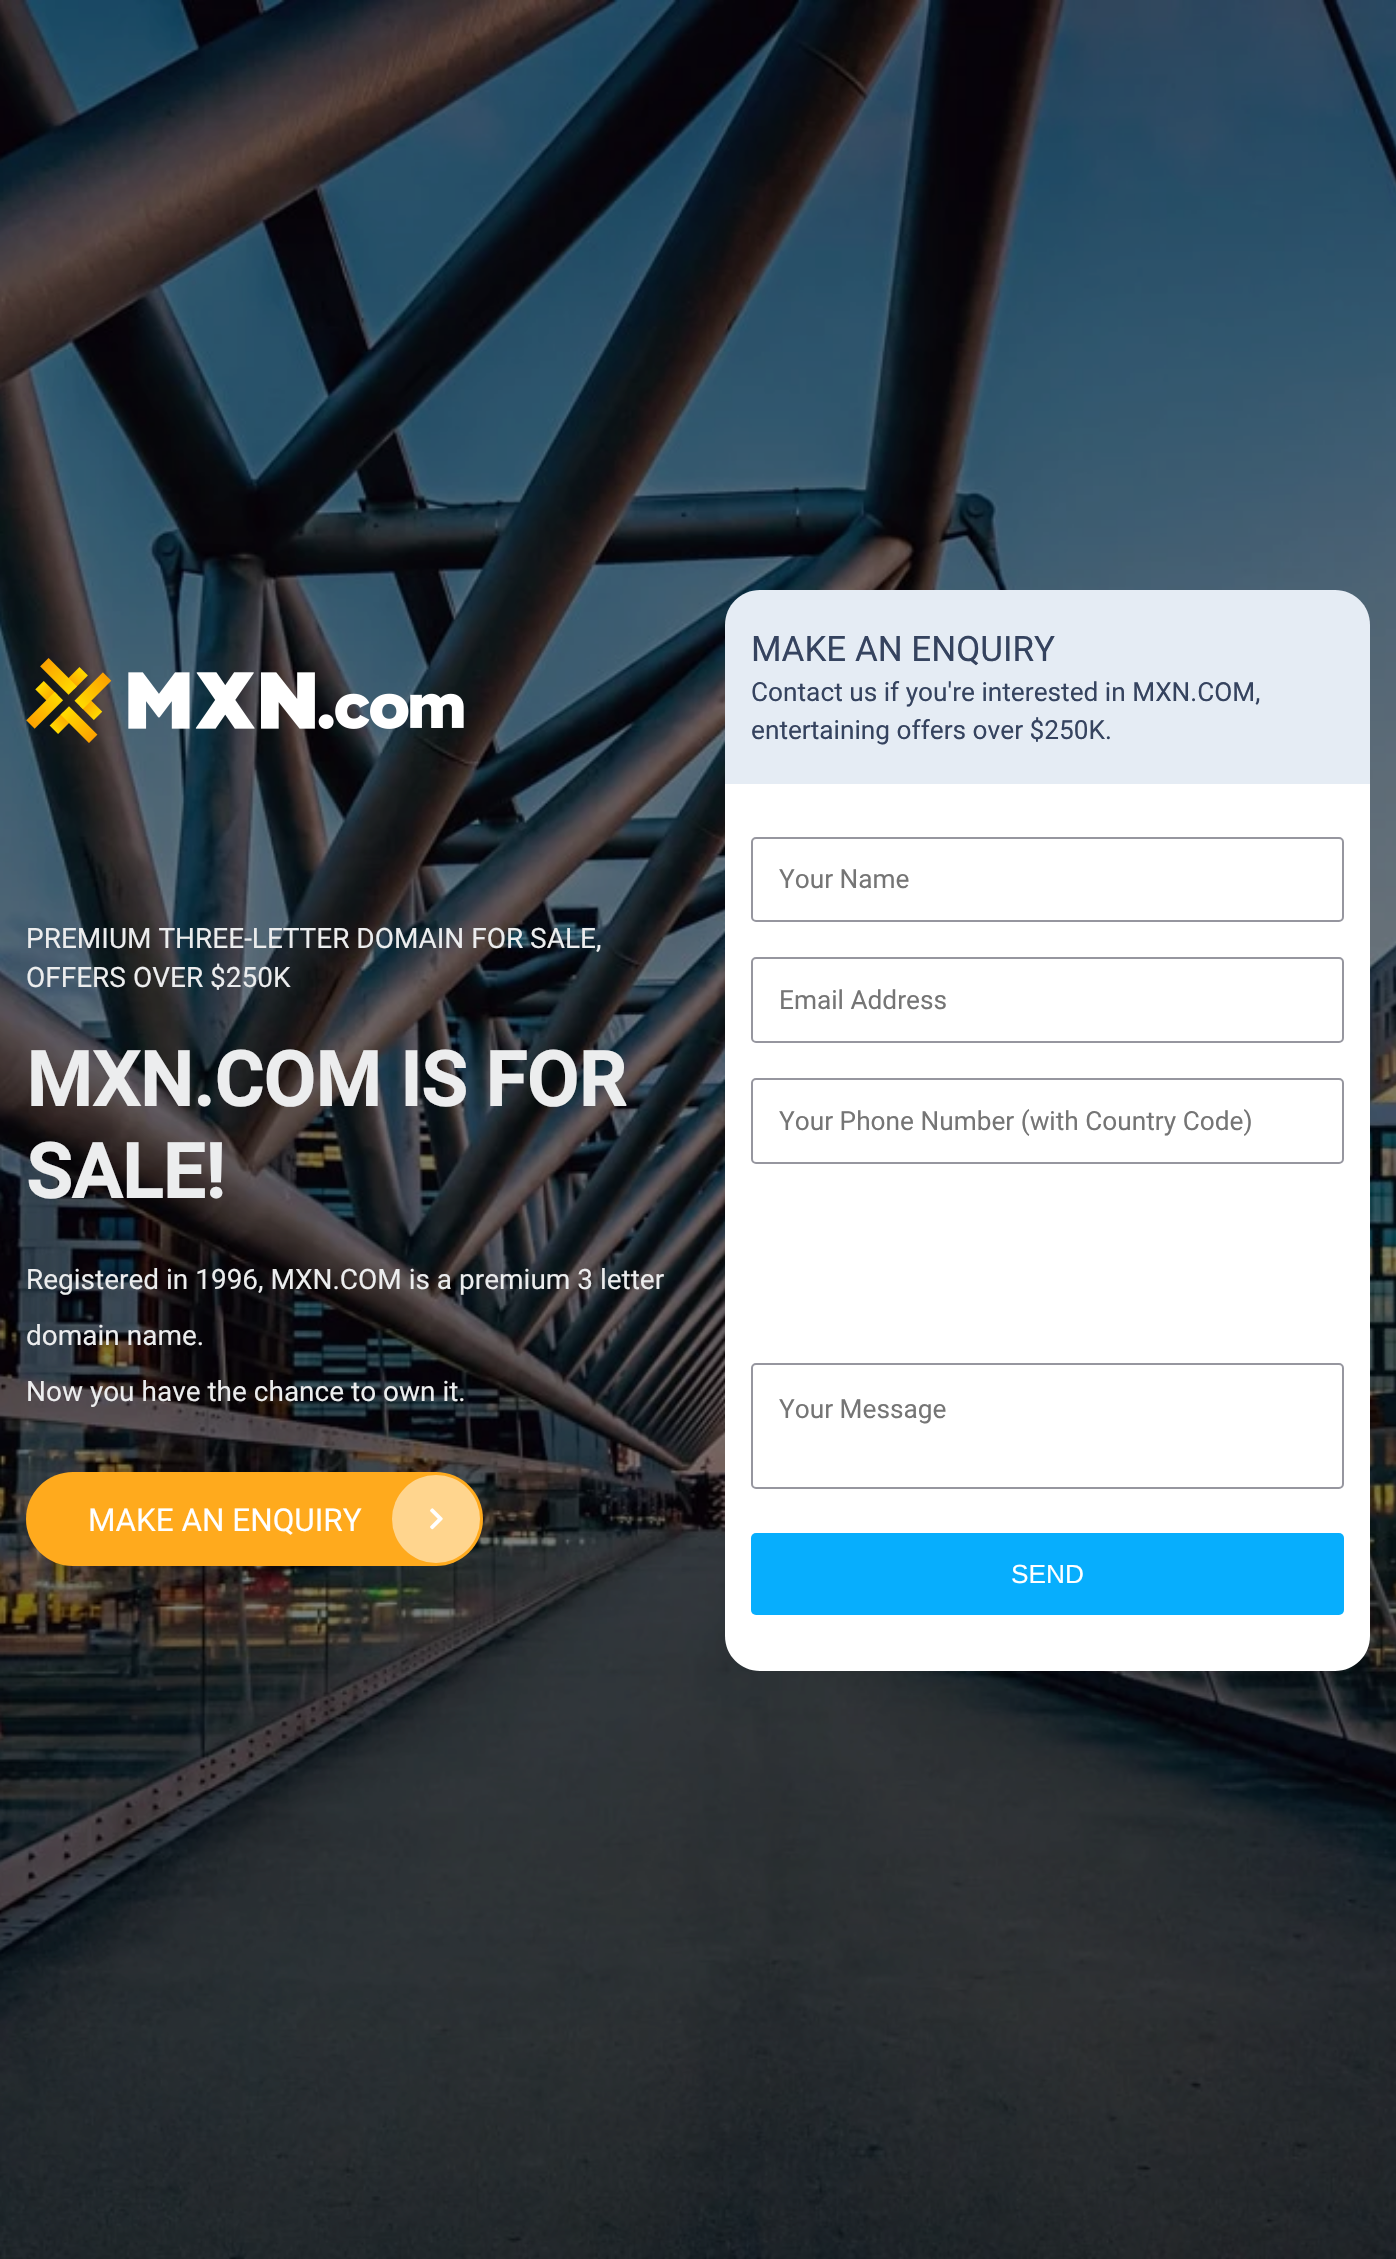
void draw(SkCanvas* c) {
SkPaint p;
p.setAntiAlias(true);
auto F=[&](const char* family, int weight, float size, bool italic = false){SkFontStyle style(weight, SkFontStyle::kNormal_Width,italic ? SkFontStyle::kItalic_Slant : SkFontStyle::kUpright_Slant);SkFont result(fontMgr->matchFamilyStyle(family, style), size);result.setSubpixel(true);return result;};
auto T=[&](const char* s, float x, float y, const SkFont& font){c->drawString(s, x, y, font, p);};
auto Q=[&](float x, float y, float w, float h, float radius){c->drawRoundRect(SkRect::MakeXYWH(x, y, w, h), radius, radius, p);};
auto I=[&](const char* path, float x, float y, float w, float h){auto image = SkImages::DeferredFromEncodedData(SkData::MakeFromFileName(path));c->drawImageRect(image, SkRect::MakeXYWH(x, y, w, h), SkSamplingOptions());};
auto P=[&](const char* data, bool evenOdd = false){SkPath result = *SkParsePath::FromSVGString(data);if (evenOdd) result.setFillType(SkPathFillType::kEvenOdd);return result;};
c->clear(0xffffffff);
I("1.png",0,0,1396,2259);
I("2.png",26,658,438,85);
auto f1 = F("Roboto",400,28);
p.setColor(0xffecedee);
T("PREMIUM THREE-LETTER DOMAIN FOR SALE,",26,948,f1);
T("OFFERS OVER $250K",26,987,f1);
auto f2 = F("Roboto",700,75.25);
T("MXN.COM IS FOR",26,1106,f2);
T("SALE!",26,1198,f2);
T("Registered in 1996, MXN.COM is a premium 3 letter",26,1289,f1);
T("domain name.",26,1345,f1);
T("Now you have the chance to own it.",26,1401,f1);
p.setColor(0xffffaa1d);
Q(26,1472,457,94,47);
auto f3 = F("Roboto",400,31.5);
p.setColor(0xffffffff);
T("MAKE AN ENQUIRY",88,1531,f3);
p.setColor(0xffffd58e);
c->drawCircle(436,1519,44,p);
I("3.png",430,1508,13,22);
p.setColor(0xffe5ecf4);
c->drawPath(P("M760 590h575c19.5 0 35 15.5 35 35v159h-645v-159c0-19.5 15.5-35 35-35z"),p);
auto f4 = F("Roboto",400,35);
p.setColor(0xff35435f);
T("MAKE AN ENQUIRY",751,661,f4);
auto f5 = F("Roboto",400,26.25);
T("Contact us if you're interested in MXN.COM,",751,701,f5);
T("entertaining offers over $250K.",751,739,f5);
p.setColor(0xffffffff);
c->drawPath(P("M725 784h645v852c0 19.5-15.5 35-35 35h-575c-19.5 0-35-15.5-35-35z"),p);
p.setStroke(true);
p.setStrokeWidth(2);
p.setColor(0xff96969f);
c->drawRoundRect(SkRect::MakeXYWH(752,838,591,83),4,4,p);
p.setStroke(false);
p.setColor(0xff757575);
T("Your Name",779,888,f5);
p.setStroke(true);
p.setColor(0xff96969f);
c->drawRoundRect(SkRect::MakeXYWH(752,958,591,84),4,4,p);
p.setStroke(false);
p.setColor(0xff757575);
T("Email Address",779,1009,f5);
p.setStroke(true);
p.setColor(0xff96969f);
c->drawRoundRect(SkRect::MakeXYWH(752,1079,591,84),4,4,p);
p.setStroke(false);
p.setColor(0xff757575);
T("Your Phone Number (with Country Code)",779,1130,f5);
p.setStroke(true);
p.setColor(0xff96969f);
c->drawRoundRect(SkRect::MakeXYWH(752,1364,591,124),4,4,p);
p.setStroke(false);
p.setColor(0xff757575);
T("Your Message",779,1418,f5);
p.setColor(0xff07aefd);
Q(751,1533,593,82,5);
auto f6 = F("Liberation Sans",400,26.25);
p.setColor(0xffffffff);
T("SEND",1011,1583,f6);
}
